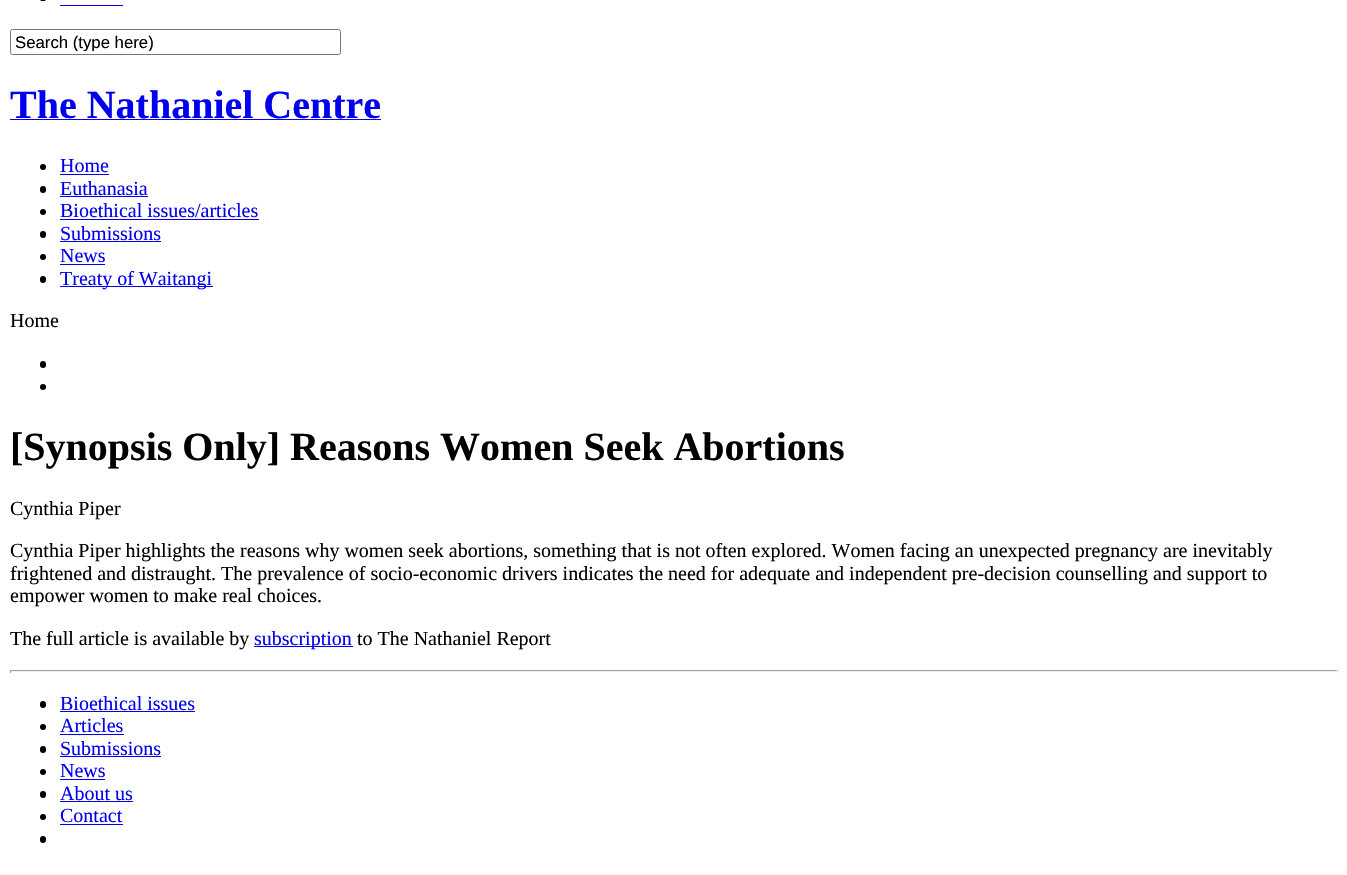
void draw(SkCanvas* c) {
SkPaint p;
p.setAntiAlias(true);
auto F=[&](const char* family, int weight, float size, bool italic = false){SkFontStyle style(weight, SkFontStyle::kNormal_Width,italic ? SkFontStyle::kItalic_Slant : SkFontStyle::kUpright_Slant);SkFont result(fontMgr->matchFamilyStyle(family, style), size);result.setSubpixel(true);return result;};
auto T=[&](const char* s, float x, float y, const SkFont& font){c->drawString(s, x, y, font, p);};
auto R=[&](float x, float y, float w, float h){c->drawRect(SkRect::MakeXYWH(x, y, w, h), p);};
auto Q=[&](float x, float y, float w, float h, float radius){c->drawRoundRect(SkRect::MakeXYWH(x, y, w, h), radius, radius, p);};
c->clear(0xffffffff);
p.setColor(0xff000000);
Q(40,-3,6,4,3);
p.setColor(0xff0000ee);
R(60,5,63,1);
p.setStroke(true);
p.setStrokeWidth(1);
p.setColor(0xff767676);
c->drawRoundRect(SkRect::MakeXYWH(10.5,29.5,330,25),2,2,p);
c->save();
c->clipRect(SkRect::MakeXYWH(15,33,321,18));
auto f1 = F("Liberation Sans",400,16.75);
p.setStroke(false);
p.setColor(0xff000000);
T("Search (type here)",15,48,f1);
c->restore();
auto f2 = F("Liberation Serif",700,40);
p.setColor(0xff0000ee);
T("The Nathaniel Centre",10,118,f2);
R(10,119,371,1);
p.setColor(0xff000000);
c->drawCircle(43,167,3,p);
auto f3 = F("Liberation Serif",400,20);
p.setColor(0xff0000ee);
T("Home",60,172,f3);
R(60,174,49,1);
p.setColor(0xff000000);
Q(40,186,6,7,3);
p.setColor(0xff0000ee);
T("Euthanasia",60,195,f3);
R(60,196,88,1);
p.setColor(0xff000000);
c->drawCircle(43,212,3,p);
p.setColor(0xff0000ee);
T("Bioethical issues/articles",60,217,f3);
R(60,219,199,1);
p.setColor(0xff000000);
Q(40,231,6,7,3);
p.setColor(0xff0000ee);
T("Submissions",60,240,f3);
R(60,241,101,1);
p.setColor(0xff000000);
c->drawCircle(43,257,3,p);
p.setColor(0xff0000ee);
T("News",60,262,f3);
R(60,264,45,1);
p.setColor(0xff000000);
Q(40,276,6,7,3);
p.setColor(0xff0000ee);
R(60,286,153,1);
T("Treaty of Waitangi",60,285,f3);
p.setColor(0xff000000);
T("Home",10,327,f3);
Q(40,361,6,7,3);
c->drawCircle(43,387,3,p);
T("[Synopsis Only] Reasons Women Seek Abortions",10,460,f2);
T("Cynthia Piper",10,515,f3);
T("Cynthia Piper highlights the reasons why women seek abortions, something that is not often explored. Women facing an unexpected pregnancy are inevitably",10,557,f3);
T("frightened and distraught. The prevalence of socio-economic drivers indicates the need for adequate and independent pre-decision counselling and support to",10,580,f3);
T("empower women to make real choices.",10,602,f3);
T("The full article is available by",10,645,f3);
p.setColor(0xff0000ee);
R(254,646,99,1);
T("subscription",254,645,f3);
p.setColor(0xff000000);
T("to The Nathaniel Report",357,645,f3);
p.setColor(0xff9f9f9f);
R(10,670,1328,1);
p.setColor(0xffeeeeee);
R(1336,670,1,3);
R(10,671,1328,1);
p.setColor(0xff9f9f9f);
R(10,670,1,3);
p.setColor(0xff000000);
Q(40,701,6,7,3);
p.setColor(0xff0000ee);
T("Bioethical issues",60,710,f3);
R(60,711,135,1);
p.setColor(0xff000000);
c->drawCircle(43,727,3,p);
p.setColor(0xff0000ee);
T("Articles",60,732,f3);
R(60,734,64,1);
p.setColor(0xff000000);
Q(40,746,6,7,3);
p.setColor(0xff0000ee);
T("Submissions",60,755,f3);
R(60,756,101,1);
p.setColor(0xff000000);
c->drawCircle(43,772,3,p);
p.setColor(0xff0000ee);
T("News",60,777,f3);
R(60,779,45,1);
p.setColor(0xff000000);
Q(40,791,6,7,3);
p.setColor(0xff0000ee);
T("About us",60,800,f3);
R(60,801,73,1);
p.setColor(0xff000000);
c->drawCircle(43,817,3,p);
p.setColor(0xff0000ee);
T("Contact",60,822,f3);
R(60,824,63,1);
p.setColor(0xff000000);
Q(40,836,6,7,3);
}
